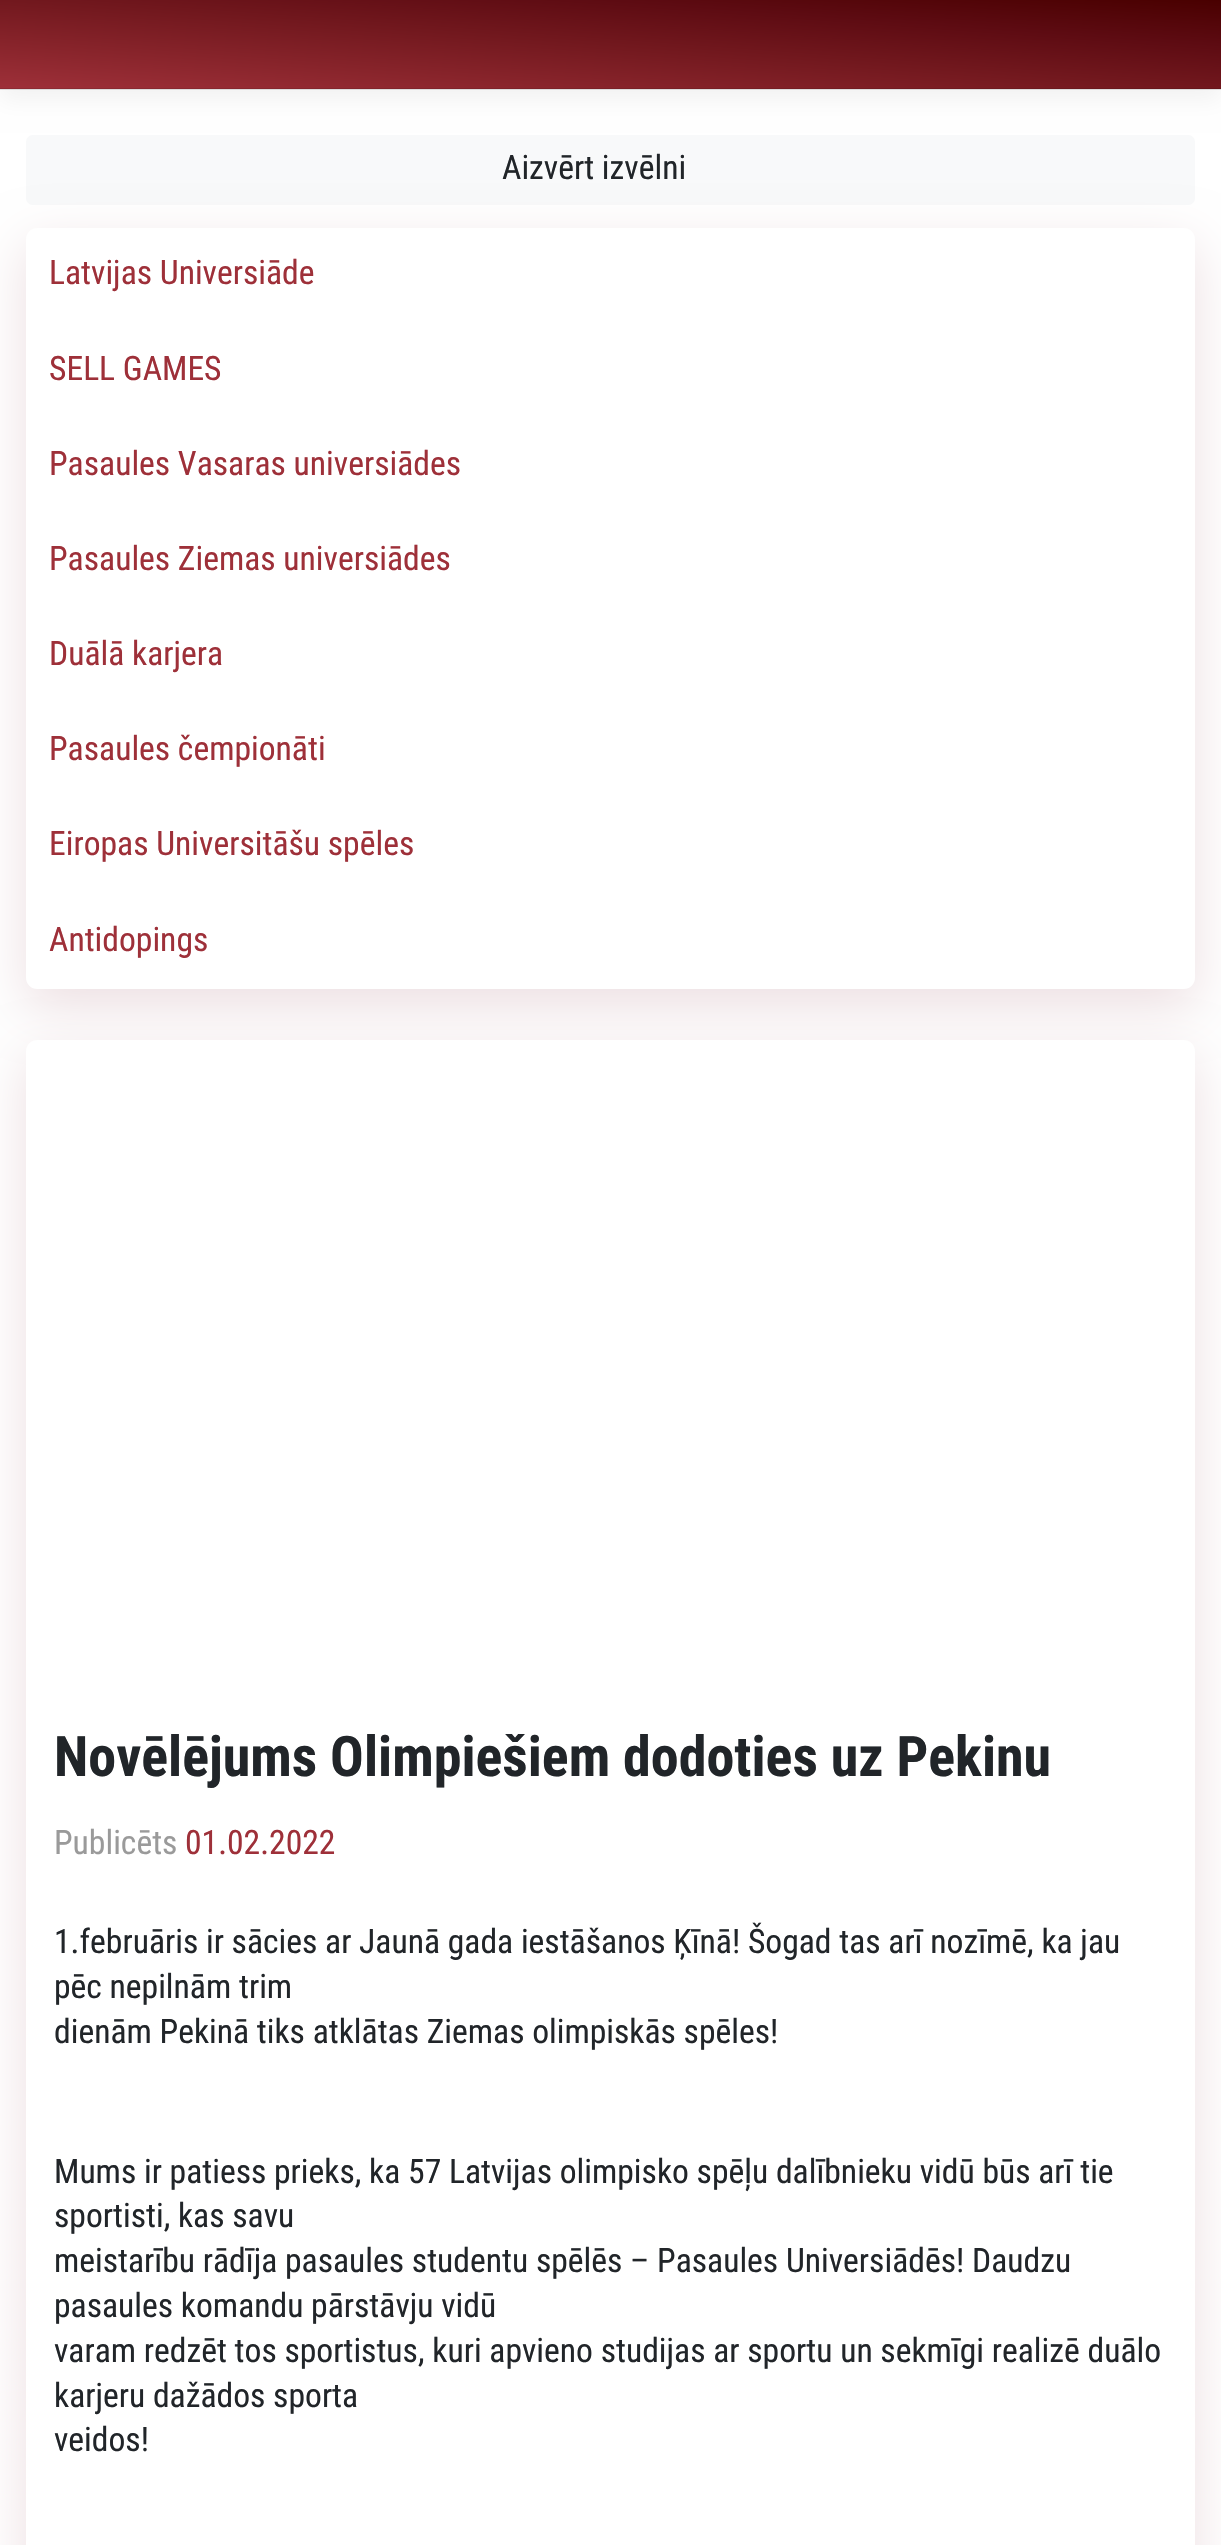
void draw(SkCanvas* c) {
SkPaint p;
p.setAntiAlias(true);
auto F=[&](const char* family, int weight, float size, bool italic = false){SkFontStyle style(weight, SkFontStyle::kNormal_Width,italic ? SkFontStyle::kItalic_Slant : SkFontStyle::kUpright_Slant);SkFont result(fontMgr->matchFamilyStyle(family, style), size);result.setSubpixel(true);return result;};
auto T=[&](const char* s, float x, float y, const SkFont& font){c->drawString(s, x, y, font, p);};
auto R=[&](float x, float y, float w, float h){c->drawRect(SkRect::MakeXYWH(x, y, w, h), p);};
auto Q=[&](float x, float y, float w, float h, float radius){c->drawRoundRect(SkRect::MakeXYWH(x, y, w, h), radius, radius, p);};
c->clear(0xffffffff);
p.setColor(0x0d000000);
p.setMaskFilter(SkMaskFilter::MakeBlur(kNormal_SkBlurStyle, 11));
c->drawRect(SkRect::MakeXYWH(0,11,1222,89),p);
p.setMaskFilter(nullptr);
{
const SkColor colors[] = {0xff9e3039,0xff88242b,0xff72181e,0xff5d0b12,0xff490000};
const float stops[] = {0,.25,.5,.75,1};
const SkPoint ends[] = {{604,133}, {617,-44}};
p.setShader(SkGradientShader::MakeLinear(ends, colors, stops, 5, SkTileMode::kClamp));
p.setAlpha(255);
}
R(0,0,1221,89);
p.setShader(nullptr);
p.setColor(0x1a000000);
R(0,88,1221,2);
p.setColor(0xfff8f9fa);
Q(26,135,1169,70,7);
auto f1 = F("Roboto Condensed",400,33.6);
p.setColor(0xff212529);
T("Aizvērt izvēlni",502,179,f1);
p.setColor(0xffeddfe2);
p.setMaskFilter(SkMaskFilter::MakeBlur(kNormal_SkBlurStyle, 26));
c->drawRoundRect(SkRect::MakeXYWH(26,245,1169,761),11,11,p);
p.setMaskFilter(nullptr);
p.setColor(0xffffffff);
Q(26,228,1169,761,11);
p.setColor(0xff9e3039);
T("Latvijas Universiāde",49,284,f1);
T("SELL GAMES",49,380,f1);
T("Pasaules Vasaras universiādes",49,475,f1);
T("Pasaules Ziemas universiādes",49,570,f1);
T("Duālā karjera",49,665,f1);
T("Pasaules čempionāti",49,760,f1);
T("Eiropas Universitāšu spēles",49,855,f1);
T("Antidopings",49,951,f1);
p.setColor(0xffeddfe2);
p.setMaskFilter(SkMaskFilter::MakeBlur(kNormal_SkBlurStyle, 26));
c->drawRoundRect(SkRect::MakeXYWH(26,1057,1169,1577),11,11,p);
p.setMaskFilter(nullptr);
p.setColor(0xffffffff);
Q(26,1040,1169,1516,11);
auto f2 = F("Roboto Condensed",700,56);
p.setColor(0xff212529);
T("Novēlējums Olimpiešiem dodoties uz Pekinu",54,1776,f2);
p.setColor(0xff9a9a9a);
T("Publicēts",54,1854,f1);
p.setColor(0xff9e3039);
T("01.02.2022",185,1854,f1);
p.setColor(0xff212529);
T("1.februāris ir sācies ar Jaunā gada iestāšanos Ķīnā! Šogad tas arī nozīmē, ka jau",54,1953,f1);
T("pēc nepilnām trim",54,1998,f1);
T("dienām Pekinā tiks atklātas Ziemas olimpiskās spēles!",54,2043,f1);
T("Mums ir patiess prieks, ka 57 Latvijas olimpisko spēļu dalībnieku vidū būs arī tie",54,2183,f1);
T("sportisti, kas savu",54,2227,f1);
T("meistarību rādīja pasaules studentu spēlēs – Pasaules Universiādēs! Daudzu",54,2272,f1);
T("pasaules komandu pārstāvju vidū",54,2317,f1);
T("varam redzēt tos sportistus, kuri apvieno studijas ar sportu un sekmīgi realizē duālo",54,2362,f1);
T("karjeru dažādos sporta",54,2407,f1);
T("veidos!",54,2451,f1);
}
